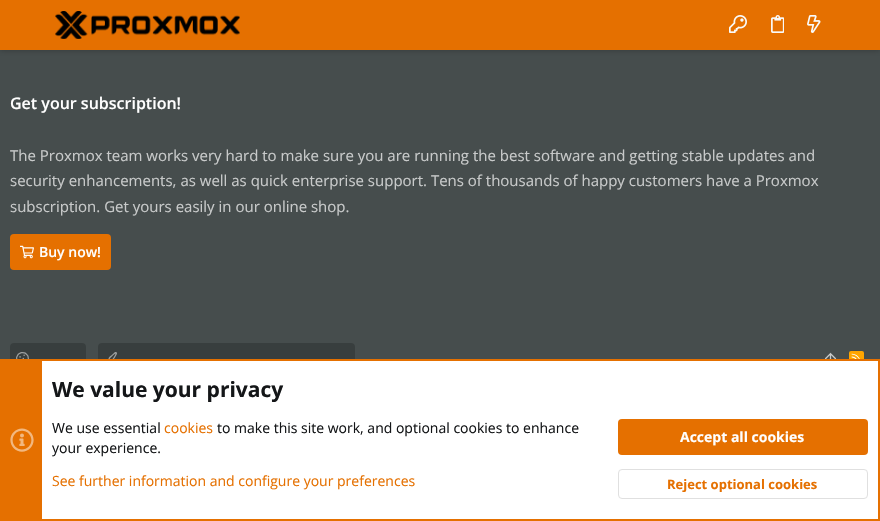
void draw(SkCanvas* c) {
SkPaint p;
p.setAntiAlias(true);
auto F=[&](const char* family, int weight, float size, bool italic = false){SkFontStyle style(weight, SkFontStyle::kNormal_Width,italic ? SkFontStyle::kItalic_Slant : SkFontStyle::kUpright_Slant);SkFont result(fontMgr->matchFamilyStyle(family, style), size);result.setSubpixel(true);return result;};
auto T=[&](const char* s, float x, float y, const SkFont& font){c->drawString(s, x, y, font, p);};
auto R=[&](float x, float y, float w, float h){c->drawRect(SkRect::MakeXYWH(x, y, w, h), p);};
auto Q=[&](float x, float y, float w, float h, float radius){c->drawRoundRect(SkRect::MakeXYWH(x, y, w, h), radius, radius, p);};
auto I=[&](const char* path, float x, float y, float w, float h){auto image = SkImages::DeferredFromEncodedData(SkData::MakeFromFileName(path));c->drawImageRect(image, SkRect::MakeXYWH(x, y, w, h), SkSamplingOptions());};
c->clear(0xff464d4d);
p.setColor(0x33000000);
p.setMaskFilter(SkMaskFilter::MakeBlur(kNormal_SkBlurStyle, 2.5));
c->drawRect(SkRect::MakeXYWH(0,1,880,50),p);
p.setMaskFilter(nullptr);
p.setColor(0xffe57000);
R(0,0,880,50);
I("1.png",55,11,185,28);
I("2.png",729,15,18,18);
I("3.png",771,15,13,18);
I("4.png",807,15,14,18);
auto f1 = F("Open Sans",600,16);
p.setColor(0xffffffff);
T("Get your subscription!",10,109,f1);
auto f2 = F("Open Sans",400,15);
p.setColor(0xffc8caca);
T("The Proxmox team works very hard to make sure you are running the best software and getting stable updates and",10,161,f2);
T("security enhancements, as well as quick enterprise support. Tens of thousands of happy customers have a Proxmox",10,186,f2);
T("subscription. Get yours easily in our online shop.",10,212,f2);
p.setColor(0xffe57000);
Q(10,234,101,36,4);
I("5.png",20,245,14,14);
auto f3 = F("Open Sans",600,14);
p.setColor(0xffffffff);
T("Buy now!",39,257,f3);
p.setColor(0xff383e3e);
Q(10,343,76,30,4);
I("6.png",16,352,13,7);
Q(98,343,257,30,4);
I("7.png",108,352,9,7);
I("8.png",824,352,13,7);
p.setColor(0xffffa500);
Q(849,351,15,15,2);
I("9.png",851,353,9,6);
p.setColor(0xffffffff);
R(42,361,836,158);
p.setStroke(true);
p.setStrokeWidth(2);
p.setColor(0xffe57000);
c->drawRect(SkRect::MakeXYWH(1,360,878,160),p);
p.setStroke(false);
R(2,361,40,158);
I("10.png",10,428,24,24);
auto f4 = F("Open Sans",700,21);
p.setColor(0xff141618);
T("We value your privacy",52,397,f4);
auto f5 = F("Open Sans",400,14);
T("We use essential",52,433,f5);
p.setColor(0xffe57000);
T("cookies",164,433,f5);
p.setColor(0xff141618);
T("to make this site work, and optional cookies to enhance",217,433,f5);
T("your experience.",52,453,f5);
p.setColor(0xffe57000);
T("See further information and configure your preferences",52,486,f5);
Q(618,419,250,36,4);
auto f6 = F("Open Sans",700,14);
p.setColor(0xffffffff);
T("Accept all cookies",680,442,f6);
p.setStroke(true);
p.setStrokeWidth(1);
p.setColor(0xffe0e0e0);
c->drawRoundRect(SkRect::MakeXYWH(618.5,469.5,249,29),3.5,3.5,p);
auto f7 = F("Open Sans",700,13);
p.setStroke(false);
p.setColor(0xffe57000);
T("Reject optional cookies",667,489,f7);
}
